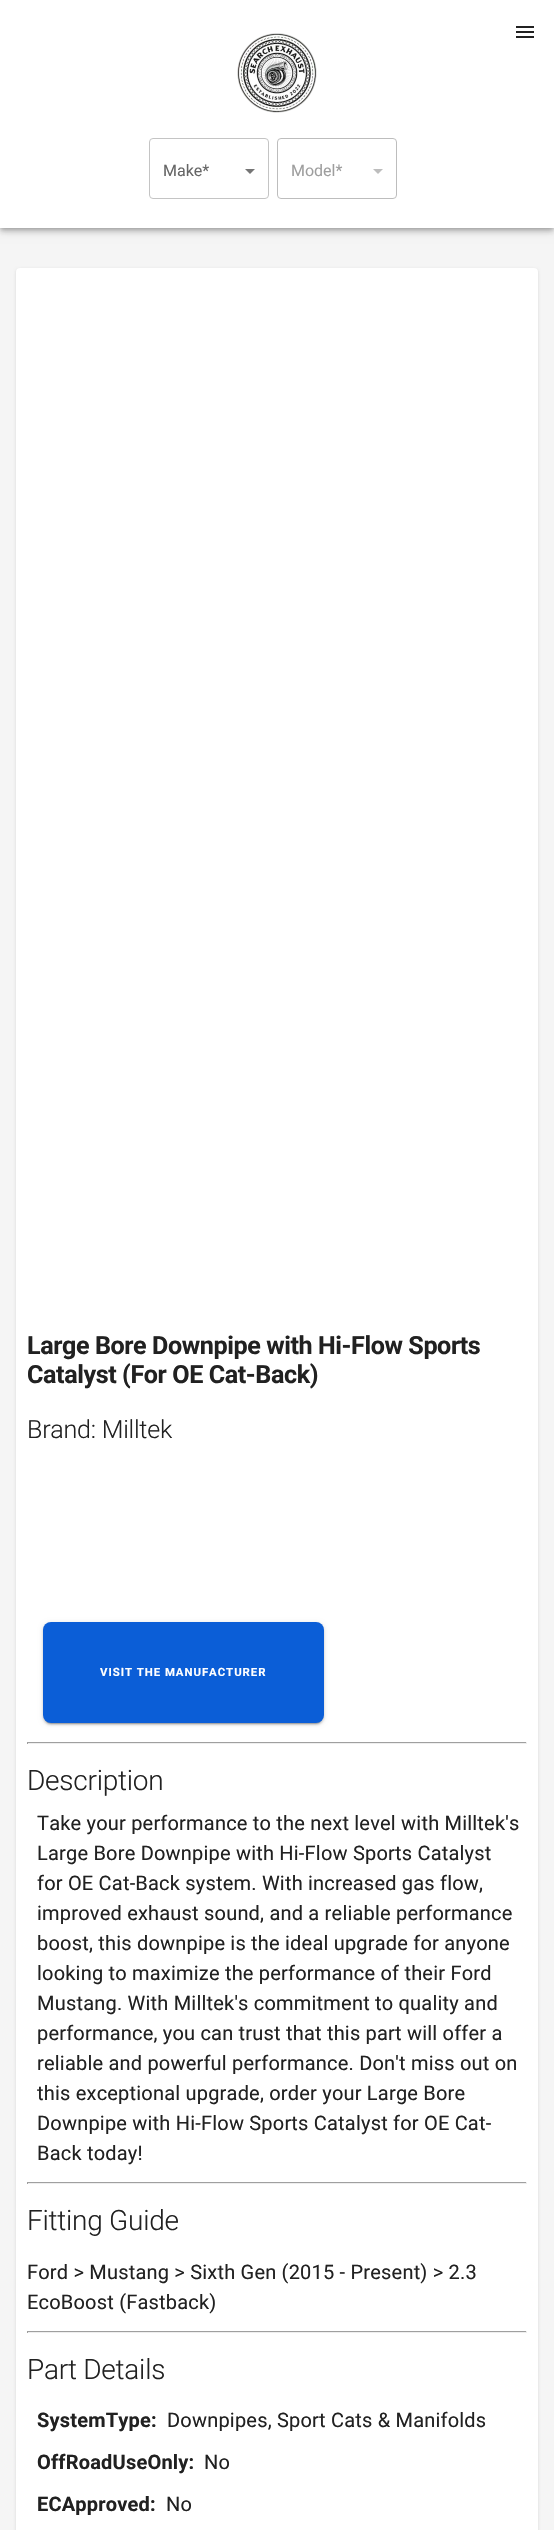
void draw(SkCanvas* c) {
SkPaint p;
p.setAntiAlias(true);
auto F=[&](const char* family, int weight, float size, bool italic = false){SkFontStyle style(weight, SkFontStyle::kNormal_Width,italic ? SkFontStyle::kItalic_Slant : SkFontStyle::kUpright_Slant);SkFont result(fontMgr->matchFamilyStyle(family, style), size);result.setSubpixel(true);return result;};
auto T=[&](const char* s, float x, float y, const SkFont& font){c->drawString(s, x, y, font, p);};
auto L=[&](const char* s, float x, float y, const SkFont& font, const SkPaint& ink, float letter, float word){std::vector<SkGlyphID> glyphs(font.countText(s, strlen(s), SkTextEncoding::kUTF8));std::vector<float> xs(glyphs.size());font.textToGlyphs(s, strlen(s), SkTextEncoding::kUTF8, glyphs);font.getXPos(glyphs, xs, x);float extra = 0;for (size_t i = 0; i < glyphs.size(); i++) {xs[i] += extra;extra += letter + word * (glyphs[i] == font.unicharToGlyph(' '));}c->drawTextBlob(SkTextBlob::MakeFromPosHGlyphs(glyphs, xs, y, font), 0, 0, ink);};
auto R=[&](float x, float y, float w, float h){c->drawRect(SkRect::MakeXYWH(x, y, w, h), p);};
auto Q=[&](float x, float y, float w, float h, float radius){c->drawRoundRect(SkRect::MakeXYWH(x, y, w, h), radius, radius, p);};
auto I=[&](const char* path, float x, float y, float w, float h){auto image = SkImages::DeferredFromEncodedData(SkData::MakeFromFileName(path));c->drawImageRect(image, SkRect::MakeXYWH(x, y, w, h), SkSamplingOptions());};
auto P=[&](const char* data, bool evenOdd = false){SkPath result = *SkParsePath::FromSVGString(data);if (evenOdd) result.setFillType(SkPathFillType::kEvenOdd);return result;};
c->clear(0xfff5f5f5);
p.setColor(0x1f000000);
p.setMaskFilter(SkMaskFilter::MakeBlur(kNormal_SkBlurStyle, 5));
c->drawRect(SkRect::MakeXYWH(0,1,554,228),p);
p.setMaskFilter(nullptr);
p.setColor(0x24000000);
p.setMaskFilter(SkMaskFilter::MakeBlur(kNormal_SkBlurStyle, 2.5));
c->drawRect(SkRect::MakeXYWH(0,4,554,228),p);
p.setMaskFilter(nullptr);
p.setColor(0x33000000);
p.setMaskFilter(SkMaskFilter::MakeBlur(kNormal_SkBlurStyle, 2));
c->drawRect(SkRect::MakeXYWH(1,3,552,226),p);
p.setMaskFilter(nullptr);
p.setColor(0xffffffff);
R(0,0,554,228);
I("1.png",237,33,80,80);
I("2.png",516,26,18,12);
p.setColor(0xff757575);
c->drawPath(P("M245 169l5 5l5-5z"),p);
p.setStroke(true);
p.setStrokeWidth(1);
p.setColor(0xffc4c4c4);
c->drawRoundRect(SkRect::MakeXYWH(149.5,138.5,119,60),3.5,3.5,p);
auto f1 = F("Roboto",400,16);
p.setStroke(false);
p.setColor(0xff666666);
T("Make*",163,176,f1);
p.setColor(0xffbdbdbd);
c->drawPath(P("M373 169l5 5l5-5z"),p);
p.setStroke(true);
c->drawRoundRect(SkRect::MakeXYWH(277.5,138.5,119,60),3.5,3.5,p);
p.setStroke(false);
p.setColor(0xff9e9e9e);
T("Model*",291,176,f1);
p.setColor(0x1f000000);
p.setMaskFilter(SkMaskFilter::MakeBlur(kNormal_SkBlurStyle, 1.5));
c->drawRoundRect(SkRect::MakeXYWH(16,269,522,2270),4,4,p);
p.setMaskFilter(nullptr);
p.setColor(0xffffffff);
Q(16,268,522,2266,4);
auto f2 = F("Roboto",700,25.1);
p.setColor(0xff212121);
L("Large Bore Downpipe with Hi-Flow Sports",27,1354,f2,p,-.4,0);
L("Catalyst (For OE Cat-Back)",27,1383,f2,p,-.4,0);
auto f3 = F("Roboto",300,25.1);
L("Brand: Milltek",27,1438,f3,p,-.25,0);
p.setColor(0x1f000000);
p.setMaskFilter(SkMaskFilter::MakeBlur(kNormal_SkBlurStyle, 2.5));
c->drawRoundRect(SkRect::MakeXYWH(43,1623,281,101),8,8,p);
p.setMaskFilter(nullptr);
p.setColor(0x24000000);
p.setMaskFilter(SkMaskFilter::MakeBlur(kNormal_SkBlurStyle, 1));
c->drawRoundRect(SkRect::MakeXYWH(43,1624,281,101),8,8,p);
p.setMaskFilter(nullptr);
p.setColor(0x33000000);
p.setMaskFilter(SkMaskFilter::MakeBlur(kNormal_SkBlurStyle, .5));
c->drawRoundRect(SkRect::MakeXYWH(45,1627,277,97),6,6,p);
p.setMaskFilter(nullptr);
p.setColor(0xff0b5ed7);
Q(43,1622,281,101,8);
auto f4 = F("Roboto",700,11.4);
p.setColor(0xffffffff);
L("VISIT THE MANUFACTURER",100,1676,f4,p,.95,0);
p.setColor(0xff9f9f9f);
R(27,1742,500,1);
p.setColor(0xffeeeeee);
R(526,1742,1,2);
R(27,1743,500,1);
p.setColor(0xff9f9f9f);
R(27,1742,1,2);
auto f5 = F("Roboto",300,28);
p.setColor(0xff212121);
L("Description",27,1790,f5,p,-.25,0);
auto f6 = F("Roboto",400,20);
L("Take your performance to the next level with Milltek's",37,1830,f6,p,.2,0);
L("Large Bore Downpipe with Hi-Flow Sports Catalyst",37,1860,f6,p,.2,0);
L("for OE Cat-Back system. With increased gas flow,",37,1890,f6,p,.2,0);
L("improved exhaust sound, and a reliable performance",37,1920,f6,p,.2,0);
L("boost, this downpipe is the ideal upgrade for anyone",37,1950,f6,p,.2,0);
L("looking to maximize the performance of their Ford",37,1980,f6,p,.2,0);
L("Mustang. With Milltek's commitment to quality and",37,2010,f6,p,.2,0);
L("performance, you can trust that this part will offer a",37,2040,f6,p,.2,0);
L("reliable and powerful performance. Don't miss out on",37,2070,f6,p,.2,0);
L("this exceptional upgrade, order your Large Bore",37,2100,f6,p,.2,0);
L("Downpipe with Hi-Flow Sports Catalyst for OE Cat-",37,2130,f6,p,.2,0);
L("Back today!",37,2160,f6,p,.2,0);
p.setColor(0xff9f9f9f);
R(27,2182,500,1);
p.setColor(0xffeeeeee);
R(526,2182,1,2);
R(27,2183,500,1);
p.setColor(0xff9f9f9f);
R(27,2182,1,2);
p.setColor(0xff212121);
L("Fitting Guide",27,2230,f5,p,-.25,0);
L("Ford > Mustang > Sixth Gen (2015 - Present) > 2.3",27,2279,f6,p,.2,0);
L("EcoBoost (Fastback)",27,2309,f6,p,.2,0);
p.setColor(0xff9f9f9f);
R(27,2331,500,1);
p.setColor(0xffeeeeee);
R(526,2331,1,2);
R(27,2332,500,1);
p.setColor(0xff9f9f9f);
R(27,2331,1,2);
p.setColor(0xff212121);
L("Part Details",27,2379,f5,p,-.25,0);
auto f7 = F("Roboto",700,20);
L("SystemType:",37,2427,f7,p,.2,0);
L("Downpipes, Sport Cats & Manifolds",167,2427,f6,p,.2,0);
L("OffRoadUseOnly:",37,2469,f7,p,.2,0);
L("No",204,2469,f6,p,.2,0);
L("ECApproved:",37,2511,f7,p,.2,0);
L("No",166,2511,f6,p,.2,0);
}
